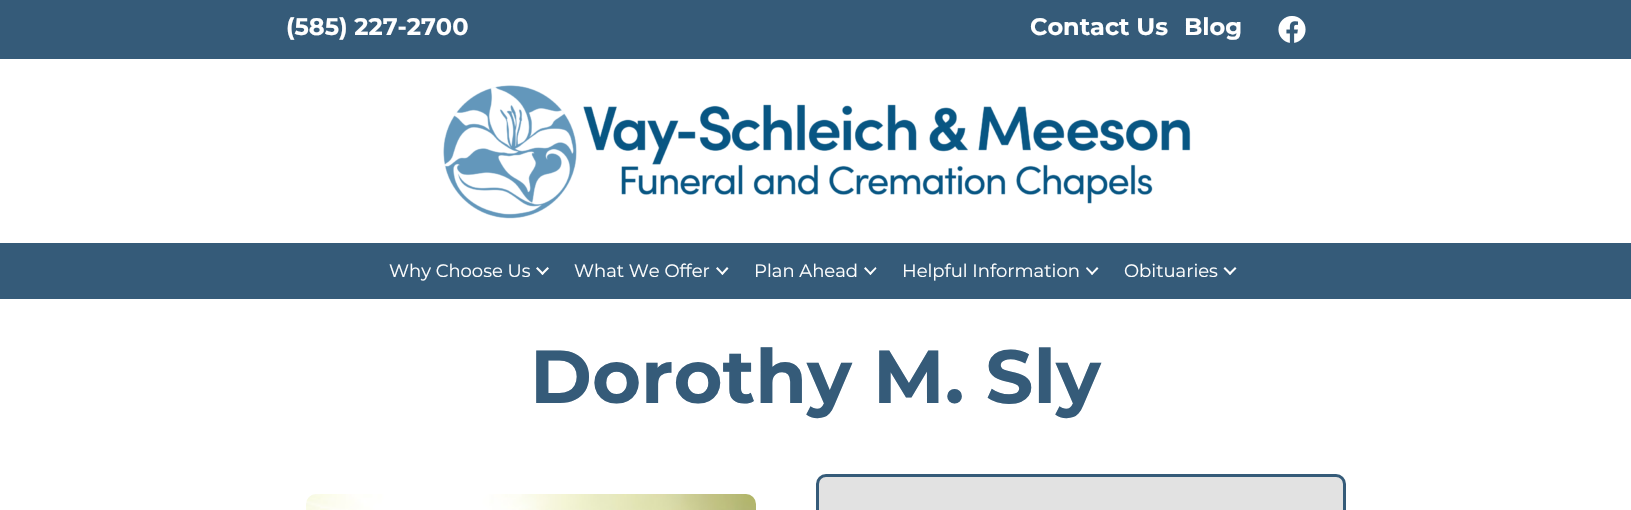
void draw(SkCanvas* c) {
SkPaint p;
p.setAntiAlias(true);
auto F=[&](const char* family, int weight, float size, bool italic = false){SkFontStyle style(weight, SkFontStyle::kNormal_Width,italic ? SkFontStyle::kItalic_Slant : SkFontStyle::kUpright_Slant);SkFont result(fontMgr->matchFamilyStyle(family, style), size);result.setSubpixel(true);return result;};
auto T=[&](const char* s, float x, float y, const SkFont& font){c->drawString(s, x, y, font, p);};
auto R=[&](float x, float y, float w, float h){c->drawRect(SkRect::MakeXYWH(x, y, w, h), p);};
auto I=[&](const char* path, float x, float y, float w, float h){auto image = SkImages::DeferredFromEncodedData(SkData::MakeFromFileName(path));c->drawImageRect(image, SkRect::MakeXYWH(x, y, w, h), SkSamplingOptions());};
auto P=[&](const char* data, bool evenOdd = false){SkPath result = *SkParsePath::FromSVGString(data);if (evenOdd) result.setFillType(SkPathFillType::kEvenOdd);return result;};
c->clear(0xffffffff);
p.setColor(0xff355b79);
R(0,0,1631,59);
auto f1 = F("Montserrat",700,24);
p.setColor(0xffffffff);
T("(585) 227-2700",286,35,f1);
T("Contact Us",1030,35,f1);
T("Blog",1184,35,f1);
I("1.png",1278,16,28,27);
I("2.png",443,85,748,134);
p.setColor(0xff355b79);
R(0,243,1631,56);
auto f2 = F("Montserrat",400,18);
p.setColor(0xffffffff);
T("Why Choose Us",389,277,f2);
c->drawPath(P("M547.5 267l1.5 1.5l-6.5 6.5l-1.5-1.5z"),p);
c->drawPath(P("M537.5 267l6.5 6.5l-1.5 1.5l-6.5-6.5z"),p);
T("What We Offer",574,277,f2);
c->drawPath(P("M727 267l1.5 1.5l-6 6.5l-1.5-1.5z"),p);
c->drawPath(P("M717.5 267l6 6.5l-1 1.5l-6.5-6.5z"),p);
T("Plan Ahead",754,277,f2);
c->drawPath(P("M875.5 267l1 1.5l-6 6.5l-1.5-1.5z"),p);
c->drawPath(P("M865.5 267l6 6.5l-1 1.5l-6.5-6.5z"),p);
T("Helpful Information",902,277,f2);
c->drawPath(P("M1097 267l1.5 1.5l-6.5 6.5l-1-1.5z"),p);
c->drawPath(P("M1087 267l6.5 6.5l-1.5 1.5l-6-6.5z"),p);
T("Obituaries",1124,277,f2);
c->drawPath(P("M1235 267l1.5 1.5l-6.5 6.5l-1.5-1.5z"),p);
c->drawPath(P("M1225 267l6.5 6.5l-1.5 1.5l-6.5-6.5z"),p);
auto f3 = F("Montserrat",700,75);
p.setColor(0xff355b79);
T("Dorothy M. Sly",530,403,f3);
I("3.png",306,494,450,16);
p.setColor(0xffe2e2e2);
c->drawRoundRect(SkRect::MakeXYWH(817.5,475.5,527,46),8.5,8.5,p);
p.setStroke(true);
p.setStrokeWidth(3);
p.setColor(0xff355b79);
c->drawRoundRect(SkRect::MakeXYWH(817.5,475.5,527,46),8.5,8.5,p);
}
